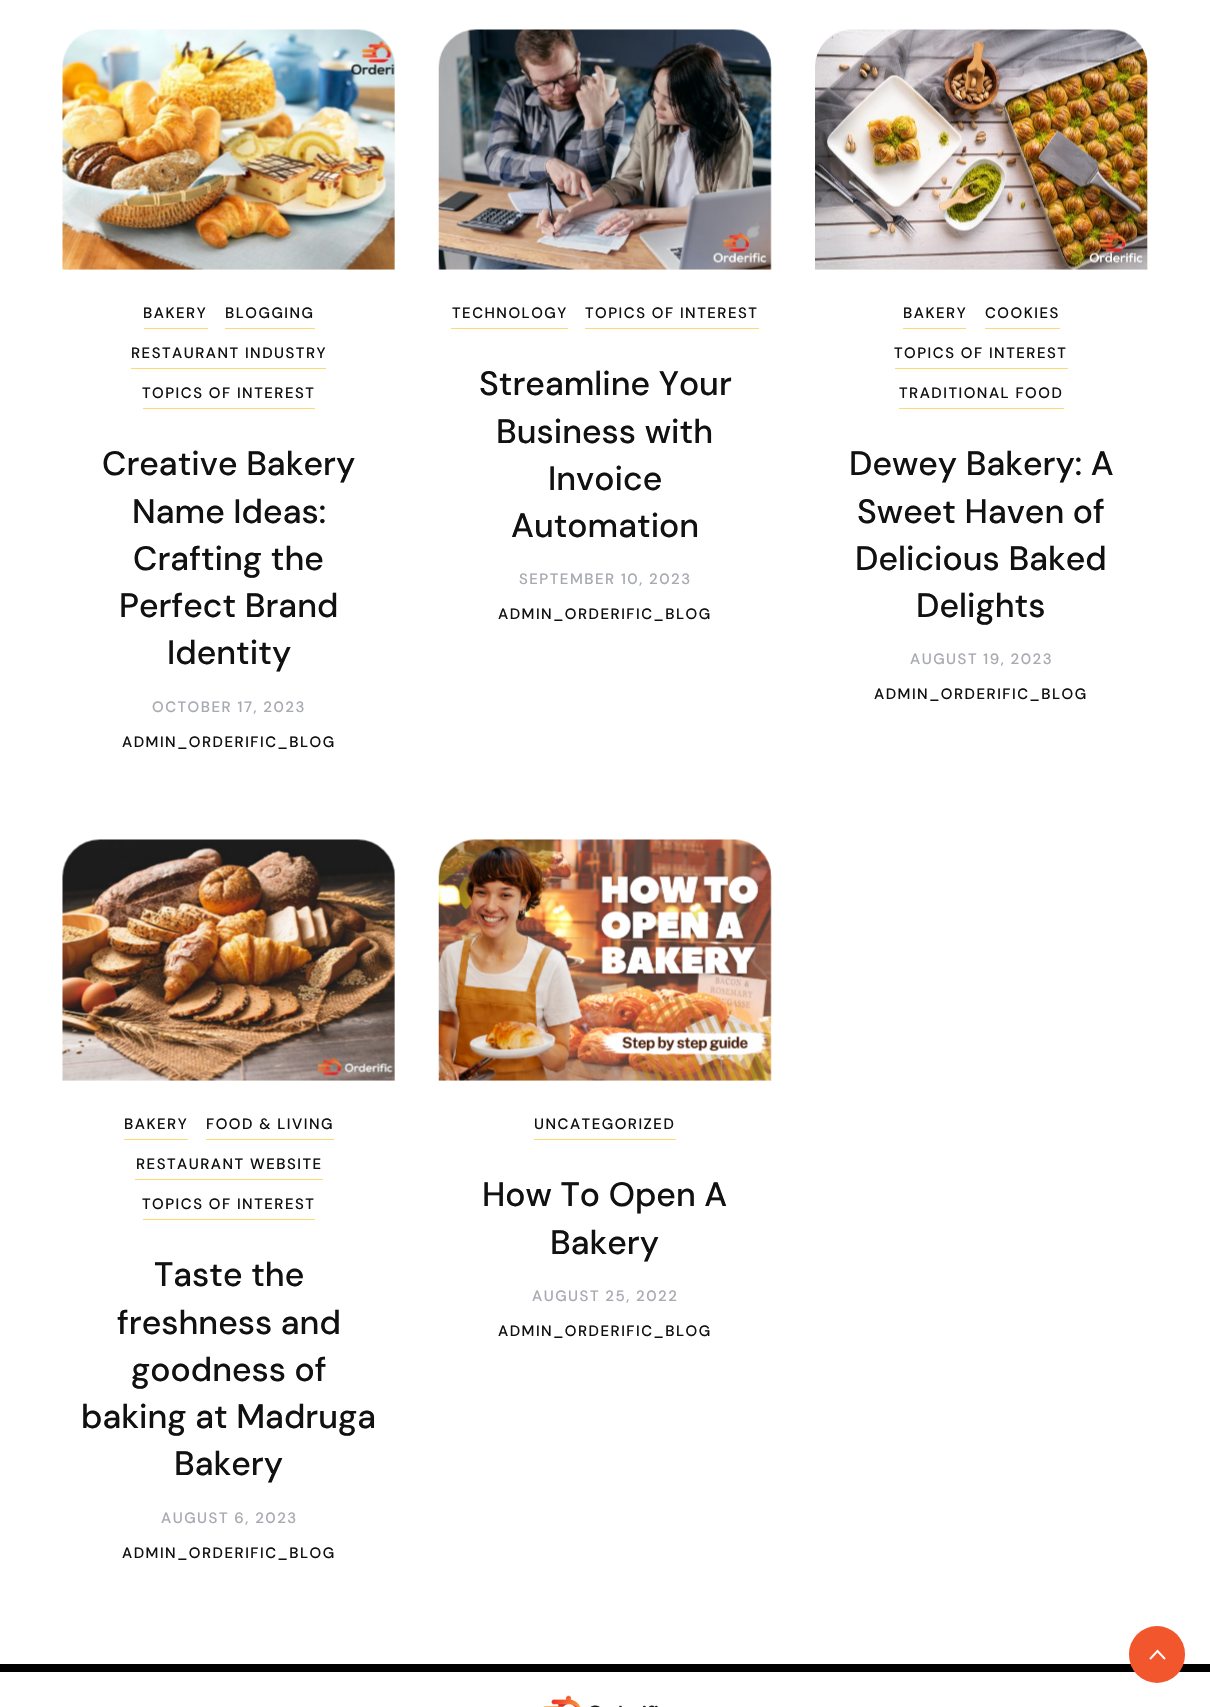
void draw(SkCanvas* c) {
SkPaint p;
p.setAntiAlias(true);
auto F=[&](const char* family, int weight, float size, bool italic = false){SkFontStyle style(weight, SkFontStyle::kNormal_Width,italic ? SkFontStyle::kItalic_Slant : SkFontStyle::kUpright_Slant);SkFont result(fontMgr->matchFamilyStyle(family, style), size);result.setSubpixel(true);return result;};
auto T=[&](const char* s, float x, float y, const SkFont& font){c->drawString(s, x, y, font, p);};
auto L=[&](const char* s, float x, float y, const SkFont& font, const SkPaint& ink, float letter, float word){std::vector<SkGlyphID> glyphs(font.countText(s, strlen(s), SkTextEncoding::kUTF8));std::vector<float> xs(glyphs.size());font.textToGlyphs(s, strlen(s), SkTextEncoding::kUTF8, glyphs);font.getXPos(glyphs, xs, x);float extra = 0;for (size_t i = 0; i < glyphs.size(); i++) {xs[i] += extra;extra += letter + word * (glyphs[i] == font.unicharToGlyph(' '));}c->drawTextBlob(SkTextBlob::MakeFromPosHGlyphs(glyphs, xs, y, font), 0, 0, ink);};
auto R=[&](float x, float y, float w, float h){c->drawRect(SkRect::MakeXYWH(x, y, w, h), p);};
auto Q=[&](float x, float y, float w, float h, float radius){c->drawRoundRect(SkRect::MakeXYWH(x, y, w, h), radius, radius, p);};
auto I=[&](const char* path, float x, float y, float w, float h){auto image = SkImages::DeferredFromEncodedData(SkData::MakeFromFileName(path));c->drawImageRect(image, SkRect::MakeXYWH(x, y, w, h), SkSamplingOptions());};
auto P=[&](const char* data, bool evenOdd = false){SkPath result = *SkParsePath::FromSVGString(data);if (evenOdd) result.setFillType(SkPathFillType::kEvenOdd);return result;};
c->clear(0xffffffff);
p.setColor(0xfffbf7ed);
c->drawPath(P("M101 30h256c21 0 38 17 38 38v202h-332v-202c0-21 17-38 38-38z"),p);
I("1.png",62,29,333,241);
p.setColor(0xffffd874);
R(144,328,64,1);
auto f1 = F("DM Sans",500,15);
p.setColor(0xff111111);
L("BAKERY",143,318,f1,p,1.5,0);
p.setColor(0xffffd874);
R(225,328,90,1);
p.setColor(0xff111111);
L("BLOGGING",225,318,f1,p,1.5,0);
p.setColor(0xffffd874);
R(131,368,195,1);
p.setColor(0xff111111);
L("RESTAURANT INDUSTRY",131,358,f1,p,1.5,0);
p.setColor(0xffffd874);
R(143,408,172,1);
p.setColor(0xff111111);
L("TOPICS OF INTEREST",142,398,f1,p,1.5,0);
auto f2 = F("DM Sans",500,33.75);
T("Creative Bakery",102,475,f2);
T("Name Ideas:",132,523,f2);
T("Crafting the",133,570,f2);
T("Perfect Brand",119,617,f2);
T("Identity",167,664,f2);
p.setColor(0xffa8aab2);
L("OCTOBER 17, 2023",152,712,f1,p,1.5,0);
p.setColor(0xff111111);
L("ADMIN_ORDERIFIC_BLOG",122,747,f1,p,1.5,0);
p.setColor(0xfffbf7ed);
c->drawPath(P("M477 30h256c21 0 38 17 38 38v202h-332v-202c0-21 17-38 38-38z"),p);
I("2.png",438,29,334,241);
p.setColor(0xffffd874);
R(451,328,117,1);
p.setColor(0xff111111);
L("TECHNOLOGY",452,318,f1,p,1.5,0);
p.setColor(0xffffd874);
R(585,328,174,1);
p.setColor(0xff111111);
L("TOPICS OF INTEREST",585,318,f1,p,1.5,0);
T("Streamline Your",479,395,f2);
T("Business with",496,443,f2);
T("Invoice",548,490,f2);
T("Automation",511,537,f2);
p.setColor(0xffa8aab2);
L("SEPTEMBER 10, 2023",519,584,f1,p,1.5,0);
p.setColor(0xff111111);
L("ADMIN_ORDERIFIC_BLOG",498,619,f1,p,1.5,0);
p.setColor(0xfffbf7ed);
c->drawPath(P("M853 30h257c21 0 38 17 38 38v202h-333v-202c0-21 17-38 38-38z"),p);
I("3.png",815,29,333,241);
p.setColor(0xffffd874);
R(903,328,63,1);
p.setColor(0xff111111);
L("BAKERY",903,318,f1,p,1.5,0);
p.setColor(0xffffd874);
R(985,328,75,1);
p.setColor(0xff111111);
L("COOKIES",985,318,f1,p,1.5,0);
p.setColor(0xffffd874);
R(895,368,173,1);
p.setColor(0xff111111);
L("TOPICS OF INTEREST",894,358,f1,p,1.5,0);
p.setColor(0xffffd874);
R(899,408,165,1);
p.setColor(0xff111111);
L("TRADITIONAL FOOD",899,398,f1,p,1.5,0);
T("Dewey Bakery: A",849,475,f2);
T("Sweet Haven of",857,523,f2);
T("Delicious Baked",855,570,f2);
T("Delights",916,617,f2);
p.setColor(0xffa8aab2);
L("AUGUST 19, 2023",910,664,f1,p,1.5,0);
p.setColor(0xff111111);
L("ADMIN_ORDERIFIC_BLOG",874,699,f1,p,1.5,0);
p.setColor(0xfffbf7ed);
c->drawPath(P("M101 840h256c21 0 38 17 38 38v203h-332v-203c0-21 17-38 38-38z"),p);
I("4.png",62,839,333,242);
p.setColor(0xffffd874);
R(124,1139,64,1);
p.setColor(0xff111111);
L("BAKERY",124,1129,f1,p,1.5,0);
p.setColor(0xffffd874);
R(206,1139,128,1);
p.setColor(0xff111111);
L("FOOD & LIVING",206,1129,f1,p,1.5,0);
p.setColor(0xffffd874);
R(135,1179,188,1);
p.setColor(0xff111111);
L("RESTAURANT WEBSITE",136,1169,f1,p,1.5,0);
p.setColor(0xffffd874);
R(143,1219,172,1);
p.setColor(0xff111111);
L("TOPICS OF INTEREST",142,1209,f1,p,1.5,0);
T("Taste the",154,1286,f2);
T("freshness and",117,1334,f2);
T("goodness of",131,1381,f2);
T("baking at Madruga",81,1428,f2);
T("Bakery",174,1475,f2);
p.setColor(0xffa8aab2);
L("AUGUST 6, 2023",161,1523,f1,p,1.5,0);
p.setColor(0xff111111);
L("ADMIN_ORDERIFIC_BLOG",122,1558,f1,p,1.5,0);
p.setColor(0xfffbf7ed);
c->drawPath(P("M477 840h256c21 0 38 17 38 38v203h-332v-203c0-21 17-38 38-38z"),p);
I("5.png",438,839,334,242);
p.setColor(0xffffd874);
R(534,1139,142,1);
p.setColor(0xff111111);
L("UNCATEGORIZED",534,1129,f1,p,1.5,0);
T("How To Open A",482,1206,f2);
T("Bakery",550,1254,f2);
p.setColor(0xffa8aab2);
L("AUGUST 25, 2022",532,1301,f1,p,1.5,0);
p.setColor(0xff111111);
L("ADMIN_ORDERIFIC_BLOG",498,1336,f1,p,1.5,0);
p.setColor(0xff000000);
R(0,1664,1210,8);
I("6.png",543,1695,115,12);
p.setColor(0xfff2562d);
Q(1129,1626,56,57,28);
p.setStroke(true);
p.setStrokeWidth(1.9);
p.setColor(0xffffffff);
c->drawPath(P("M1150 1659l7.5-8l7.5 8"),p);
}
